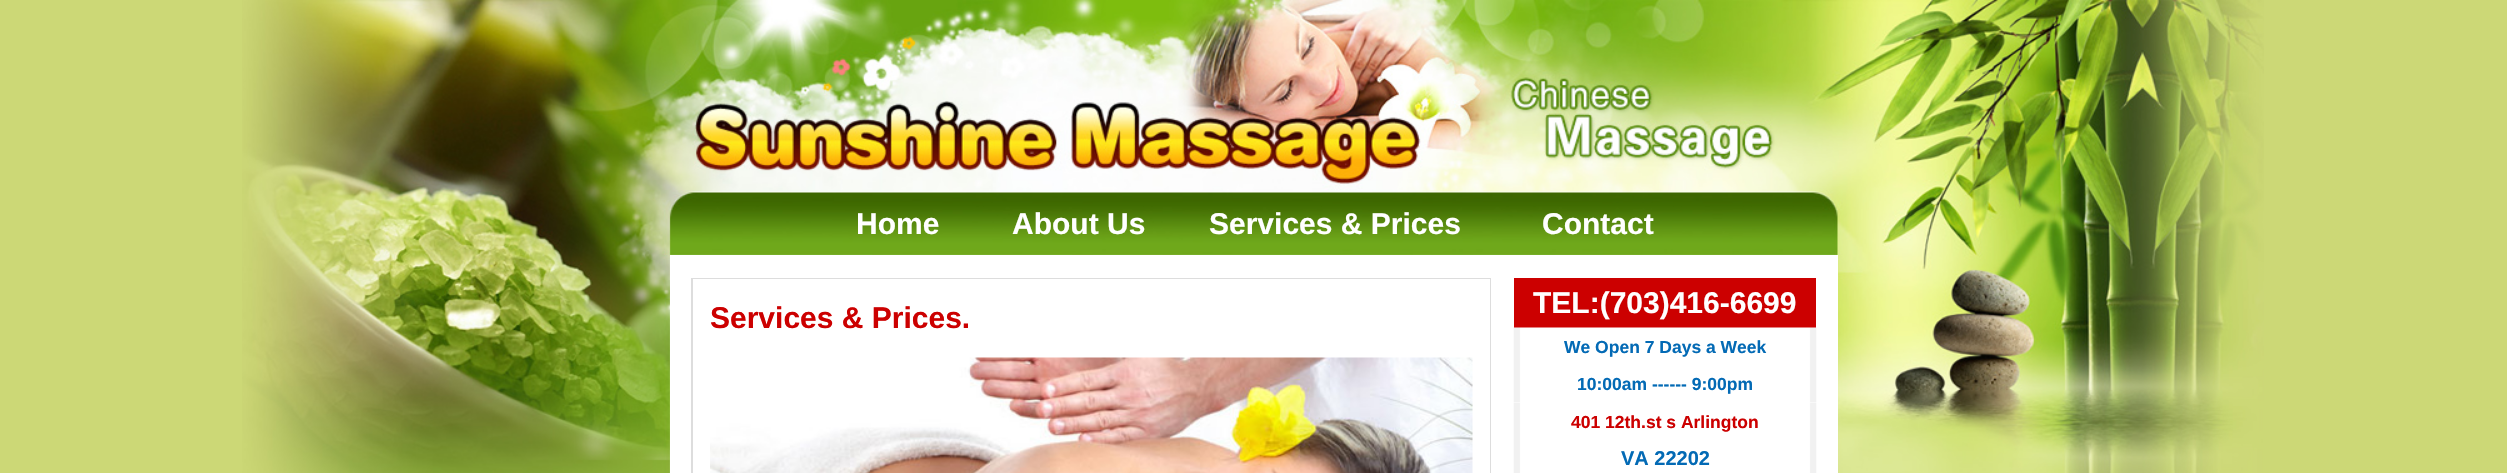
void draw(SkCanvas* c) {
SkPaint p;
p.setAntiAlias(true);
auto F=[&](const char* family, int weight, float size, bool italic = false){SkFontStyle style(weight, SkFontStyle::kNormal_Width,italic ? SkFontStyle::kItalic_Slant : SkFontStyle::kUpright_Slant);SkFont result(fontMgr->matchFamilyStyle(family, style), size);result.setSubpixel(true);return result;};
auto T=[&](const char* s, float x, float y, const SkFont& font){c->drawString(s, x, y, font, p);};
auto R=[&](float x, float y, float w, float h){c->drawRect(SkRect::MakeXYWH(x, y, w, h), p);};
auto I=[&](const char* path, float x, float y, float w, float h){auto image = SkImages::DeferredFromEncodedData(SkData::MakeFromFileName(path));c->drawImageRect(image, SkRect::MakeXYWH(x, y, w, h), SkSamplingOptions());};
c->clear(0xffccd876);
I("1.png",242,0,2022,473);
auto f1 = F("Liberation Sans",700,30);
p.setColor(0xffffffff);
T("Home",856,234,f1);
T("About Us",1012,234,f1);
T("Services & Prices",1209,234,f1);
T("Contact",1542,234,f1);
R(670,255,1168,218);
p.setColor(0xffdddddd);
R(691,278,800,195);
p.setColor(0xffffffff);
R(693,279,797,194);
p.setColor(0xffcc0000);
T("Services & Prices.",710,328,f1);
I("2.png",710,357,763,116);
R(1514,278,302,50);
p.setColor(0xffffffff);
T("TEL:(703)416-6699",1533,313,f1);
I("3.png",1513,327,304,38);
auto f2 = F("Liberation Sans",700,17.5);
p.setColor(0xff036ab5);
T("We Open 7 Days a Week",1564,353,f2);
I("4.png",1513,365,304,38);
T("10:00am ------ 9:00pm",1577,390,f2);
I("5.png",1513,403,304,37);
p.setColor(0xffcc0000);
T("401 12th.st s Arlington",1571,428,f2);
I("6.png",1513,440,304,33);
auto f3 = F("Liberation Sans",700,20);
p.setColor(0xff036ab5);
T("VA 22202",1621,465,f3);
}
